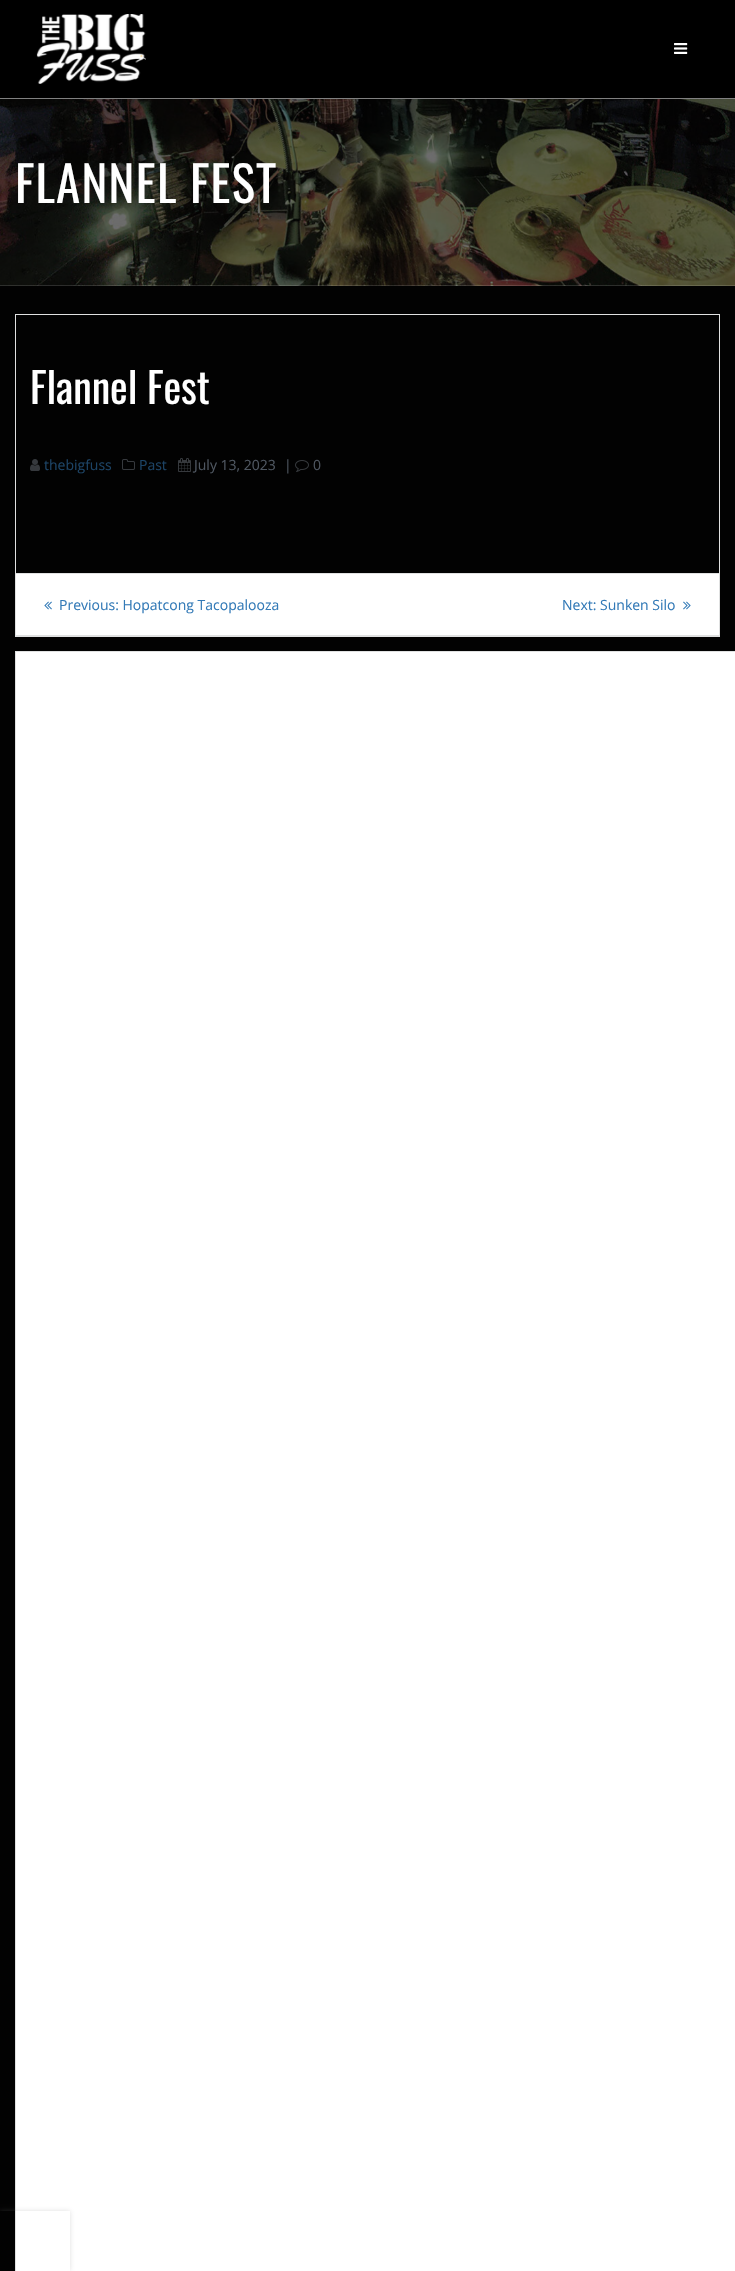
void draw(SkCanvas* c) {
SkPaint p;
p.setAntiAlias(true);
auto F=[&](const char* family, int weight, float size, bool italic = false){SkFontStyle style(weight, SkFontStyle::kNormal_Width,italic ? SkFontStyle::kItalic_Slant : SkFontStyle::kUpright_Slant);SkFont result(fontMgr->matchFamilyStyle(family, style), size);result.setSubpixel(true);return result;};
auto T=[&](const char* s, float x, float y, const SkFont& font){c->drawString(s, x, y, font, p);};
auto L=[&](const char* s, float x, float y, const SkFont& font, const SkPaint& ink, float letter, float word){std::vector<SkGlyphID> glyphs(font.countText(s, strlen(s), SkTextEncoding::kUTF8));std::vector<float> xs(glyphs.size());font.textToGlyphs(s, strlen(s), SkTextEncoding::kUTF8, glyphs);font.getXPos(glyphs, xs, x);float extra = 0;for (size_t i = 0; i < glyphs.size(); i++) {xs[i] += extra;extra += letter + word * (glyphs[i] == font.unicharToGlyph(' '));}c->drawTextBlob(SkTextBlob::MakeFromPosHGlyphs(glyphs, xs, y, font), 0, 0, ink);};
auto R=[&](float x, float y, float w, float h){c->drawRect(SkRect::MakeXYWH(x, y, w, h), p);};
auto I=[&](const char* path, float x, float y, float w, float h){auto image = SkImages::DeferredFromEncodedData(SkData::MakeFromFileName(path));c->drawImageRect(image, SkRect::MakeXYWH(x, y, w, h), SkSamplingOptions());};
auto P=[&](const char* data, bool evenOdd = false){SkPath result = *SkParsePath::FromSVGString(data);if (evenOdd) result.setFillType(SkPathFillType::kEvenOdd);return result;};
c->clear(0xffffffff);
p.setColor(0xff000000);
R(0,0,735,98);
p.setColor(0xff808080);
R(0,98,735,1);
I("1.png",36,14,110,70);
I("2.png",674,43,14,11);
I("3.png",0,99,735,187);
auto f1 = F("Oswald",400,49);
p.setColor(0xffffffff);
L("FLANNEL FEST",15,203,f1,p,1.25,0);
p.setColor(0xff020202);
R(0,286,735,1985);
p.setStroke(true);
p.setStrokeWidth(1);
p.setColor(0xffe0e1e1);
c->drawRect(SkRect::MakeXYWH(15.5,314.5,704,322),p);
auto f2 = F("Oswald",400,42);
p.setStroke(false);
p.setColor(0xffffffff);
T("Flannel Fest",30,404,f2);
I("4.png",30,459,10,12);
auto f3 = F("Open Sans",400,14);
p.setColor(0xff1c4365);
T("thebigfuss",44,470,f3);
I("5.png",122,459,13,11);
T("Past",139,470,f3);
I("6.png",178,458,13,14);
p.setColor(0xff4e5660);
T("July 13, 2023",194,470,f3);
T("|",284,470,f3);
I("7.png",295,460,14,12);
T("0",313,470,f3);
p.setColor(0xffffffff);
R(16,574,703,61);
p.setColor(0xffe0e1e1);
R(16,573,703,1);
R(16,635,703,1);
I("8.png",44,601,8,9);
p.setColor(0xff337ab7);
T("Previous: Hopatcong Tacopalooza",59,610,f3);
T("Next: Sunken Silo",562,610,f3);
I("9.png",683,601,8,9);
p.setColor(0xffffffff);
c->drawRect(SkRect::MakeXYWH(15.5,651.5,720,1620),p);
p.setStroke(true);
p.setColor(0xffe0e1e1);
c->drawRect(SkRect::MakeXYWH(15.5,651.5,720,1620),p);
c->save();
c->clipPath(P("M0 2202h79v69h-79zm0 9h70v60h-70z",true),true);
p.setStroke(false);
p.setColor(0x40808080);
p.setMaskFilter(SkMaskFilter::MakeBlur(kNormal_SkBlurStyle, 2.5));
c->drawRect(SkRect::MakeXYWH(0,2211,70,60),p);
p.setMaskFilter(nullptr);
c->restore();
}
